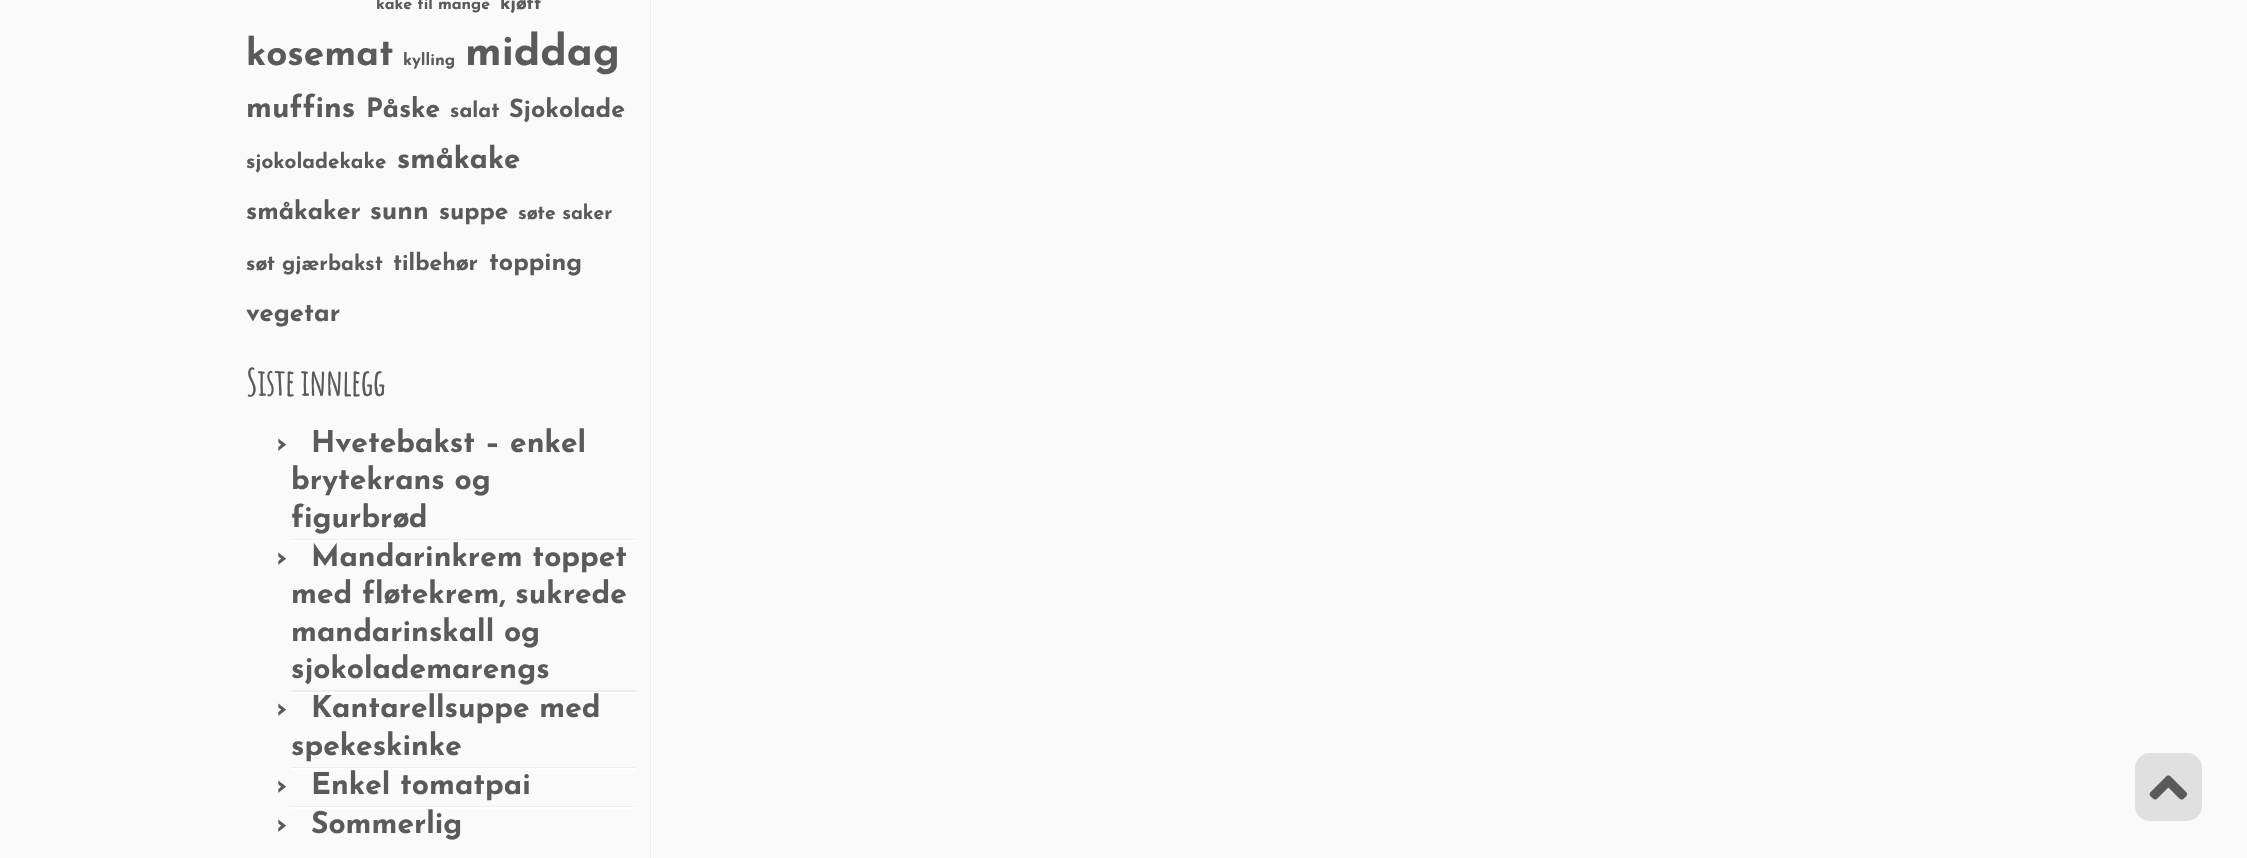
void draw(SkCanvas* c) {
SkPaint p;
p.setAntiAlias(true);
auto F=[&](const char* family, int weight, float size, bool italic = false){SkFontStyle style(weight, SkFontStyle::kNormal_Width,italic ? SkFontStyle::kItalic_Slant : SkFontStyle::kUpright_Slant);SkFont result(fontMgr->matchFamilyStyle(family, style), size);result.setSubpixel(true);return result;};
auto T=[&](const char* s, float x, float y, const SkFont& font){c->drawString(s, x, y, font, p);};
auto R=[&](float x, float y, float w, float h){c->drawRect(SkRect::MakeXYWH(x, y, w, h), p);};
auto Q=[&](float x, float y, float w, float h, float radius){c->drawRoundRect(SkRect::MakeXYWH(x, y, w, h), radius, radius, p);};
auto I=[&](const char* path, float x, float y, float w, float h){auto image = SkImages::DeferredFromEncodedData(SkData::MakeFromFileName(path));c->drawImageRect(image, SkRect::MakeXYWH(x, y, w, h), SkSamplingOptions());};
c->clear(0xfffafafa);
p.setColor(0xffeeeeee);
R(650,0,1,858);
auto f1 = F("Josefin Sans",100,16);
p.setColor(0xff5a5a5a);
T("kake til mange",376,9,f1);
auto f2 = F("Josefin Sans",100,19);
T("kjøtt",500,9,f2);
auto f3 = F("Josefin Sans",100,37);
T("kosemat",246,65,f3);
auto f4 = F("Josefin Sans",100,16.5);
T("kylling",403,65,f4);
auto f5 = F("Josefin Sans",100,42.5);
T("middag",465,65,f5);
auto f6 = F("Josefin Sans",100,30);
T("muffins",246,117,f6);
auto f7 = F("Josefin Sans",100,26.5);
T("Påske",366,117,f7);
auto f8 = F("Josefin Sans",100,21);
T("salat",450,117,f8);
auto f9 = F("Josefin Sans",100,25);
T("Sjokolade",509,117,f9);
auto f10 = F("Josefin Sans",100,20.75);
T("sjokoladekake",246,168,f10);
auto f11 = F("Josefin Sans",100,29.5);
T("småkake",397,168,f11);
T("småkaker",246,219,f9);
T("sunn",370,219,f7);
auto f12 = F("Josefin Sans",100,24.5);
T("suppe",439,219,f12);
auto f13 = F("Josefin Sans",100,19.5);
T("søte saker",518,219,f13);
T("søt gjærbakst",246,270,f8);
auto f14 = F("Josefin Sans",100,23);
T("tilbehør",393,270,f14);
T("topping",489,270,f9);
auto f15 = F("Josefin Sans",100,25.5);
T("vegetar",246,321,f15);
p.setColor(0xffffffff);
R(651,0,2,858);
auto f16 = F("Amatic SC",700,36);
p.setColor(0xff5a5a5a);
T("Siste innlegg",246,396,f16);
p.setColor(0xffeeeeee);
R(291,539,344,1);
p.setColor(0xff5a5a5a);
T("›",276,452,f6);
T("Hvetebakst – enkel",311,452,f6);
T("brytekrans og",291,489,f6);
T("figurbrød",291,527,f6);
p.setColor(0xffffffff);
R(291,540,344,2);
p.setColor(0xffeeeeee);
R(291,690,344,2);
p.setColor(0xff5a5a5a);
T("›",276,566,f6);
T("Mandarinkrem toppet",311,566,f6);
T("med fløtekrem, sukrede",291,603,f6);
T("mandarinskall og",291,641,f6);
T("sjokolademarengs",291,678,f6);
p.setColor(0xffffffff);
R(291,692,344,2);
p.setColor(0xffeeeeee);
R(291,767,344,1);
p.setColor(0xff5a5a5a);
T("›",276,717,f6);
T("Kantarellsuppe med",311,717,f6);
T("spekeskinke",291,755,f6);
p.setColor(0xffffffff);
R(291,768,344,2);
p.setColor(0xffeeeeee);
R(291,806,344,1);
p.setColor(0xff5a5a5a);
T("›",276,794,f6);
T("Enkel tomatpai",311,794,f6);
p.setColor(0xffffffff);
R(291,807,344,2);
p.setColor(0xff5a5a5a);
T("›",276,833,f6);
T("Sommerlig",311,833,f6);
p.setColor(0xffe0e0e0);
Q(2135,753,67,68,15);
I("1.png",2149,775,39,25);
}
